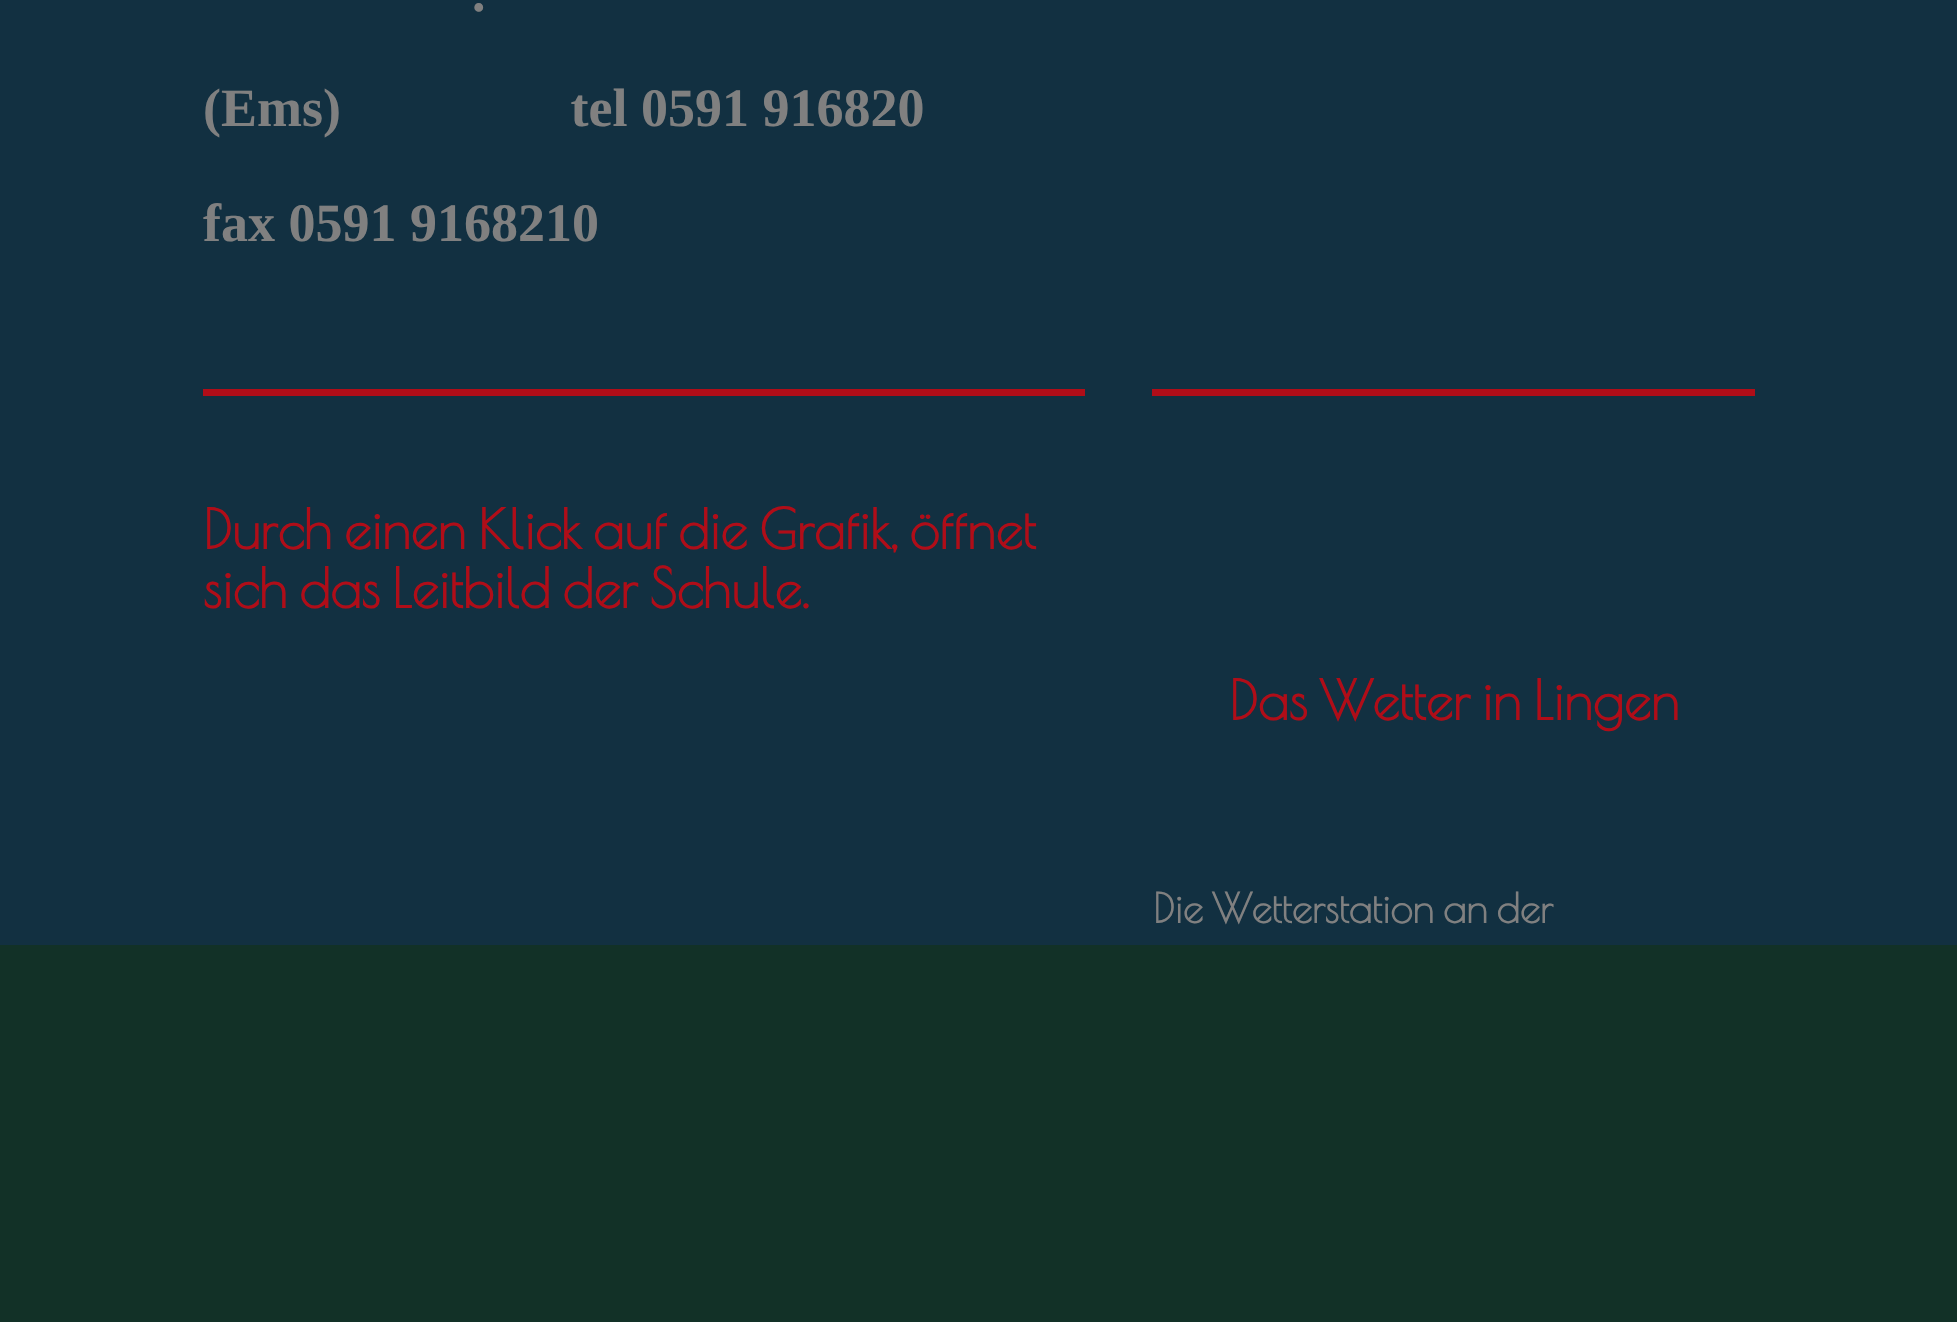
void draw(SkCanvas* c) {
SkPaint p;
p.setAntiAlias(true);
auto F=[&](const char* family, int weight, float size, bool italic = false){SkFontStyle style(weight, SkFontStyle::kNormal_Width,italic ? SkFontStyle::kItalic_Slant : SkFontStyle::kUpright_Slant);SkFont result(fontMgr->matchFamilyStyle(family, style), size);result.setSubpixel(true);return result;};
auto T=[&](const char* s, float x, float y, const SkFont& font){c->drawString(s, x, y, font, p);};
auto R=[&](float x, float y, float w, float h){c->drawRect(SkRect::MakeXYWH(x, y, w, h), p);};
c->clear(0xff123041);
auto f1 = F("Liberation Serif",700,54);
p.setColor(0xff808080);
T(".",472,11,f1);
T("(Ems)                 tel 0591 916820",203,126,f1);
T("fax 0591 9168210",203,241,f1);
p.setColor(0xffb00d18);
R(203,389,882,7);
auto f2 = F("Poiret One",700,54);
T("Durch einen Klick auf die Grafik, öffnet",203,549,f2);
T("sich das Leitbild der Schule.",203,608,f2);
R(1152,389,603,7);
T("Das Wetter in Lingen",1229,720,f2);
auto f3 = F("Poiret One",700,40.5);
p.setColor(0xff808080);
T("Die Wetterstation an der",1153,923,f3);
p.setColor(0xf2123025);
R(0,945,1957,377);
}
